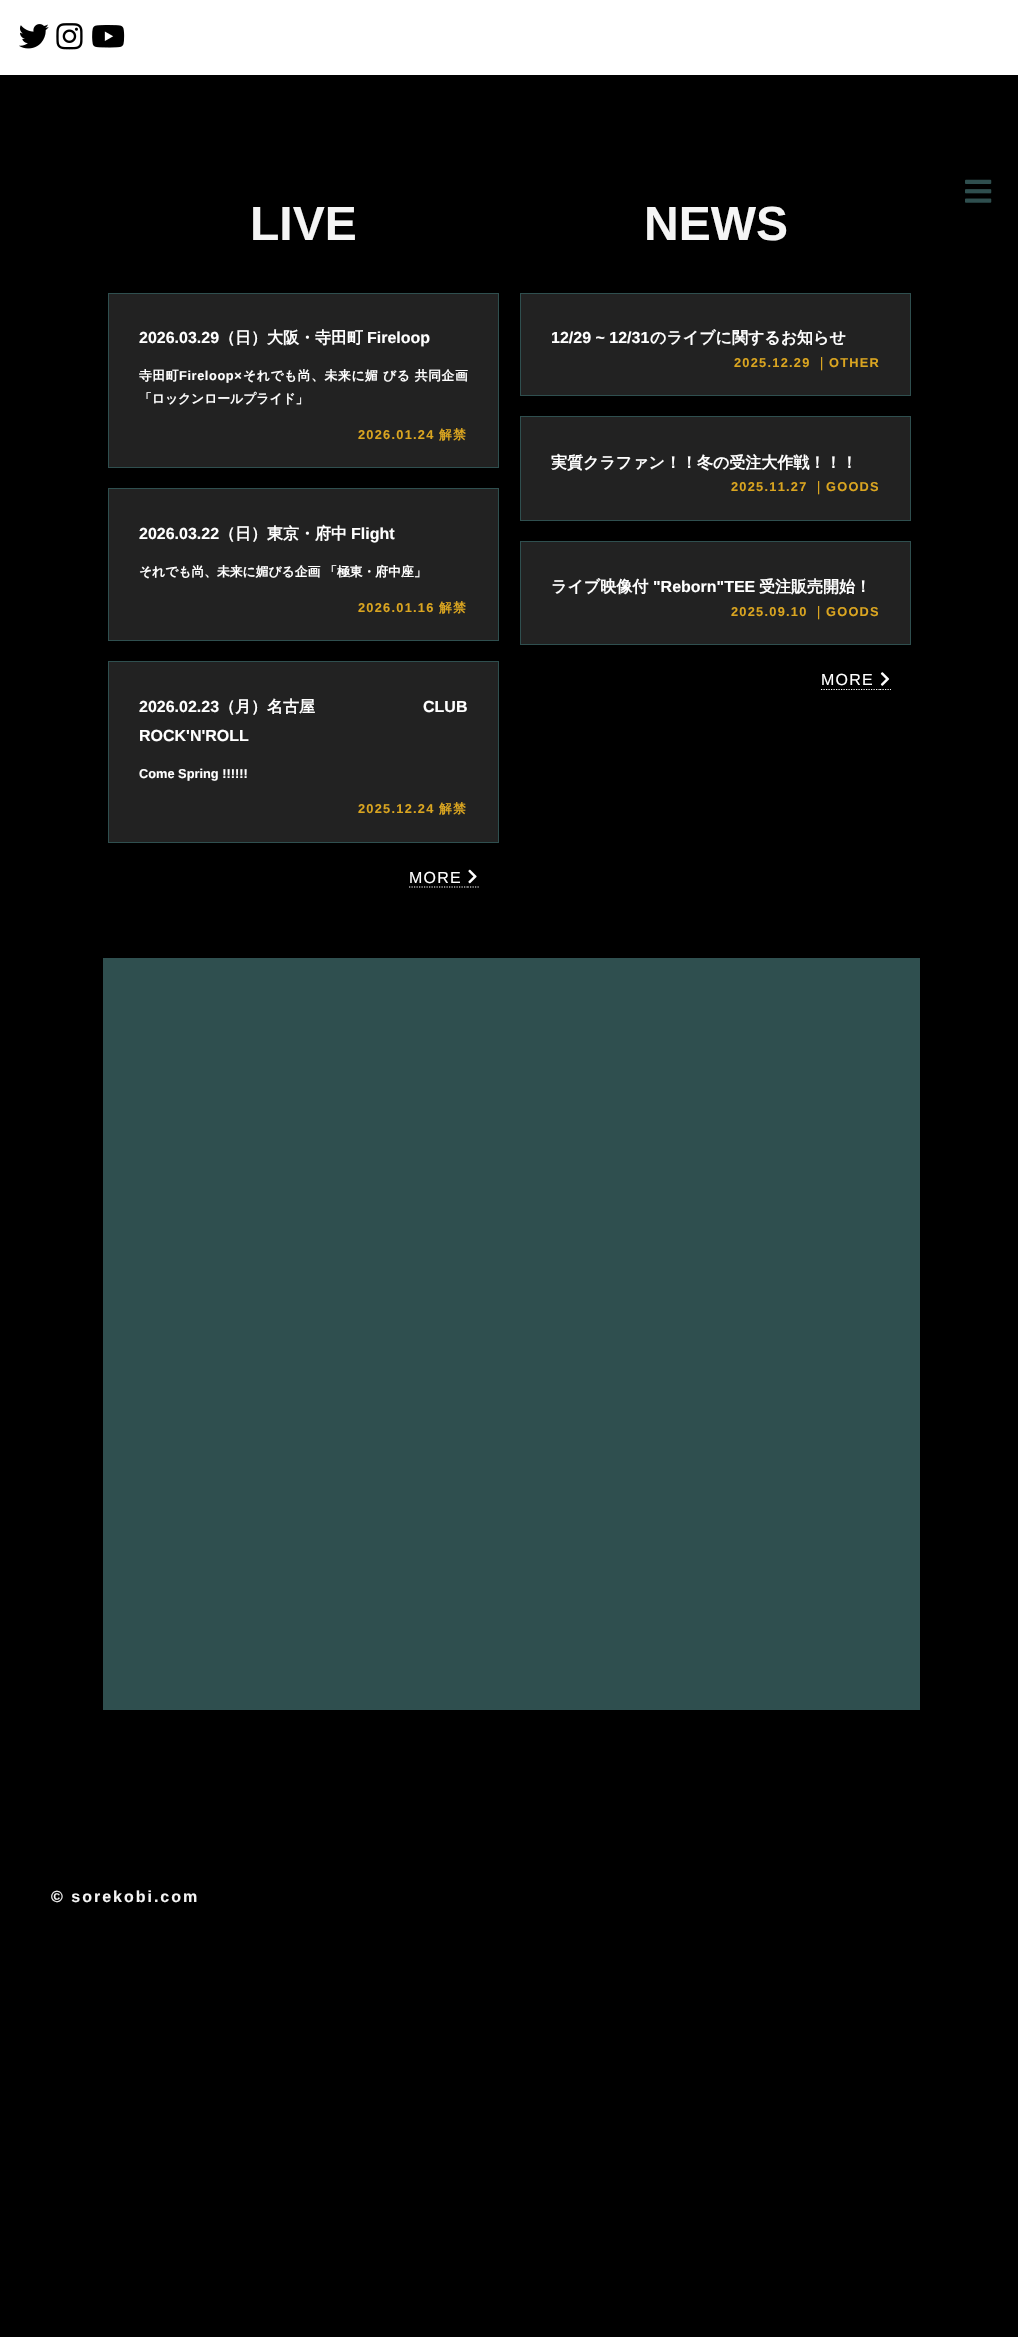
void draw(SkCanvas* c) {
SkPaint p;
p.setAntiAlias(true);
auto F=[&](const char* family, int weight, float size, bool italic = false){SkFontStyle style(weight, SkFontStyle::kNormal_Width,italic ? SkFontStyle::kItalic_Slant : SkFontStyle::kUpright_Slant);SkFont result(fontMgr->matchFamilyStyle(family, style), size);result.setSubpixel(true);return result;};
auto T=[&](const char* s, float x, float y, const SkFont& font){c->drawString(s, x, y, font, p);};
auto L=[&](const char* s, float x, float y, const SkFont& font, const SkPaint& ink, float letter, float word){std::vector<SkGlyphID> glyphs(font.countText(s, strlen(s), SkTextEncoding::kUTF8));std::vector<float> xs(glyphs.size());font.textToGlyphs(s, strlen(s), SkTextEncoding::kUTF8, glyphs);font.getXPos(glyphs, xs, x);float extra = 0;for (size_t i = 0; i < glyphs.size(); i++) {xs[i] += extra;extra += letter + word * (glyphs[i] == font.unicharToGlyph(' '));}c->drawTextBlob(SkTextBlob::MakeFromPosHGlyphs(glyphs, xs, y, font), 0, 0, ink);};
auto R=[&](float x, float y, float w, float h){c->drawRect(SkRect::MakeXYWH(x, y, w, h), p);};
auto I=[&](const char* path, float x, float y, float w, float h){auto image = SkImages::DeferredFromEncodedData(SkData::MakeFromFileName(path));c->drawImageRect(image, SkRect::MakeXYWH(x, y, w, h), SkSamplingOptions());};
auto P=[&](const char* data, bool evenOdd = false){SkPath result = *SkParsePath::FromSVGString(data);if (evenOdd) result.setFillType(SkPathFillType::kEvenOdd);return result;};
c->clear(0xff000000);
p.setColor(0xffffffff);
R(0,0,1018,75);
I("1.png",19,24,30,25);
I("2.png",56,23,27,27);
I("3.png",92,25,33,23);
I("4.png",965,179,27,24);
auto f1 = F("Liberation Sans",700,48);
p.setColor(0xfff5f5f5);
T("LIVE",250,240,f1);
p.setColor(0xff222222);
c->drawRect(SkRect::MakeXYWH(108.5,293.5,390,174),p);
p.setStroke(true);
p.setStrokeWidth(1);
p.setColor(0xff2f4f4f);
c->drawRect(SkRect::MakeXYWH(108.5,293.5,390,174),p);
auto f2 = F("Liberation Sans",700,16);
p.setStroke(false);
p.setColor(0xffffffff);
T("2026.03.29",139,343,f2);
auto f3 = F("WenQuanYi Zen Hei",700,16);
T("（日）大阪・寺田町",219,343,f3);
T("Fireloop",367,343,f2);
auto f4 = F("WenQuanYi Zen Hei",700,12.8);
L("寺田町",139,380,f4,p,.6,0);
auto f5 = F("Liberation Sans",700,12.8);
L("Fireloop×",179,380,f5,p,.6,0);
L("それでも尚、未来に媚 びる 共同企画",243,380,f4,p,.6,0);
T("「ロックンロールプライド」",139,403,f4);
p.setColor(0xffdaa520);
L("2026.01.24",358,439,f5,p,1.25,0);
L("解禁",439,439,f4,p,1.25,0);
p.setColor(0xff222222);
c->drawRect(SkRect::MakeXYWH(108.5,488.5,390,152),p);
p.setStroke(true);
p.setColor(0xff2f4f4f);
c->drawRect(SkRect::MakeXYWH(108.5,488.5,390,152),p);
p.setStroke(false);
p.setColor(0xffffffff);
T("2026.03.22",139,539,f2);
T("（日）東京・府中",219,539,f3);
T("Flight",351,539,f2);
T("それでも尚、未来に媚びる企画 「極東・府中座」",139,576,f4);
p.setColor(0xffdaa520);
L("2026.01.16",358,612,f5,p,1.25,0);
L("解禁",439,612,f4,p,1.25,0);
p.setColor(0xff222222);
c->drawRect(SkRect::MakeXYWH(108.5,661.5,390,181),p);
p.setStroke(true);
p.setColor(0xff2f4f4f);
c->drawRect(SkRect::MakeXYWH(108.5,661.5,390,181),p);
p.setStroke(false);
p.setColor(0xffffffff);
T("2026.02.23",139,712,f2);
T("（月）名古屋",219,712,f3);
T("CLUB",423,712,f2);
T("ROCK'N'ROLL",139,741,f2);
T("Come Spring !!!!!!",139,778,f5);
p.setColor(0xffdaa520);
L("2025.12.24",358,813,f5,p,1.25,0);
L("解禁",439,813,f4,p,1.25,0);
p.setStroke(true);
p.setStrokeWidth(1.2);
p.setColor(0xffffffff);
p.setPathEffect(SkDashPathEffect::Make({{1.25f,1.25f}}, 0));
c->drawPath(P("M409 887h58.5"),p);
p.setPathEffect(nullptr);
p.setPathEffect(SkDashPathEffect::Make({{1.25f,1.25f}}, 0));
c->drawPath(P("M467.5 887h11.5"),p);
p.setPathEffect(nullptr);
auto f6 = F("Liberation Sans",400,16);
p.setStroke(false);
L("MORE",409,883,f6,p,1.25,0);
I("5.png",468,869,9,15);
p.setColor(0xfff5f5f5);
T("NEWS",644,240,f1);
p.setColor(0xff222222);
c->drawRect(SkRect::MakeXYWH(520.5,293.5,390,102),p);
p.setStroke(true);
p.setStrokeWidth(1);
p.setColor(0xff2f4f4f);
c->drawRect(SkRect::MakeXYWH(520.5,293.5,390,102),p);
p.setStroke(false);
p.setColor(0xffffffff);
T("12/29 ~ 12/31",551,343,f2);
T("のライブに関するお知らせ",650,343,f3);
p.setColor(0xffdaa520);
L("2025.12.29",734,367,f5,p,1.25,0);
L("｜",815,367,f4,p,1.25,0);
L("OTHER",829,367,f5,p,1.25,0);
p.setColor(0xff222222);
c->drawRect(SkRect::MakeXYWH(520.5,416.5,390,104),p);
p.setStroke(true);
p.setColor(0xff2f4f4f);
c->drawRect(SkRect::MakeXYWH(520.5,416.5,390,104),p);
p.setStroke(false);
p.setColor(0xffffffff);
T("実質クラファン！！冬の受注大作戦！！！",551,468,f3);
p.setColor(0xffdaa520);
L("2025.11.27",731,491,f5,p,1.25,0);
L("｜",812,491,f4,p,1.25,0);
L("GOODS",826,491,f5,p,1.25,0);
p.setColor(0xff222222);
c->drawRect(SkRect::MakeXYWH(520.5,541.5,390,103),p);
p.setStroke(true);
p.setColor(0xff2f4f4f);
c->drawRect(SkRect::MakeXYWH(520.5,541.5,390,103),p);
p.setStroke(false);
p.setColor(0xffffffff);
T("ライブ映像付",551,592,f3);
T("\"Reborn\"TEE",653,592,f2);
T("受注販売開始！",759,592,f3);
p.setColor(0xffdaa520);
L("2025.09.10",731,616,f5,p,1.25,0);
L("｜",812,616,f4,p,1.25,0);
L("GOODS",826,616,f5,p,1.25,0);
p.setStroke(true);
p.setStrokeWidth(1.2);
p.setColor(0xffffffff);
p.setPathEffect(SkDashPathEffect::Make({{1.25f,1.25f}}, 0));
c->drawPath(P("M821 689.5h59"),p);
p.setPathEffect(nullptr);
p.setPathEffect(SkDashPathEffect::Make({{1.25f,1.25f}}, 0));
c->drawPath(P("M880 689.5h11"),p);
p.setPathEffect(nullptr);
p.setStroke(false);
L("MORE",821,685,f6,p,1.25,0);
I("6.png",880,672,10,14);
p.setColor(0xff2f4f4f);
R(103,958,817,752);
p.setColor(0xfff5f5f5);
L("© sorekobi.com",51,1902,f2,p,2,0);
}
